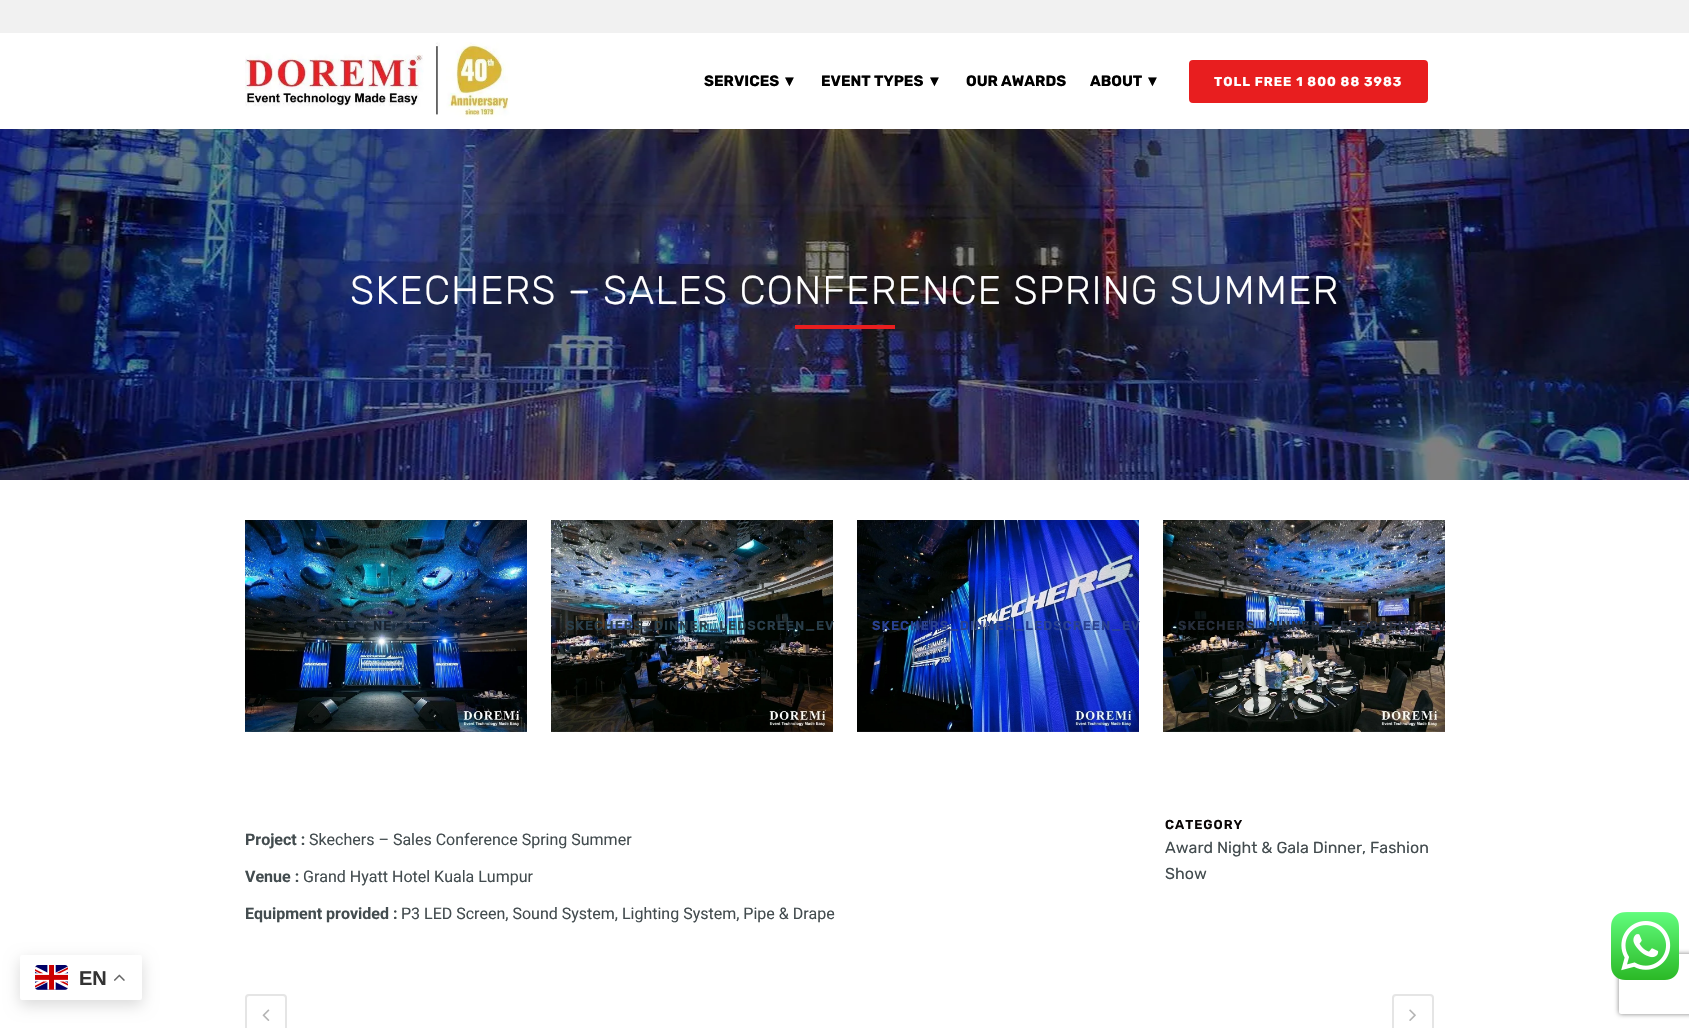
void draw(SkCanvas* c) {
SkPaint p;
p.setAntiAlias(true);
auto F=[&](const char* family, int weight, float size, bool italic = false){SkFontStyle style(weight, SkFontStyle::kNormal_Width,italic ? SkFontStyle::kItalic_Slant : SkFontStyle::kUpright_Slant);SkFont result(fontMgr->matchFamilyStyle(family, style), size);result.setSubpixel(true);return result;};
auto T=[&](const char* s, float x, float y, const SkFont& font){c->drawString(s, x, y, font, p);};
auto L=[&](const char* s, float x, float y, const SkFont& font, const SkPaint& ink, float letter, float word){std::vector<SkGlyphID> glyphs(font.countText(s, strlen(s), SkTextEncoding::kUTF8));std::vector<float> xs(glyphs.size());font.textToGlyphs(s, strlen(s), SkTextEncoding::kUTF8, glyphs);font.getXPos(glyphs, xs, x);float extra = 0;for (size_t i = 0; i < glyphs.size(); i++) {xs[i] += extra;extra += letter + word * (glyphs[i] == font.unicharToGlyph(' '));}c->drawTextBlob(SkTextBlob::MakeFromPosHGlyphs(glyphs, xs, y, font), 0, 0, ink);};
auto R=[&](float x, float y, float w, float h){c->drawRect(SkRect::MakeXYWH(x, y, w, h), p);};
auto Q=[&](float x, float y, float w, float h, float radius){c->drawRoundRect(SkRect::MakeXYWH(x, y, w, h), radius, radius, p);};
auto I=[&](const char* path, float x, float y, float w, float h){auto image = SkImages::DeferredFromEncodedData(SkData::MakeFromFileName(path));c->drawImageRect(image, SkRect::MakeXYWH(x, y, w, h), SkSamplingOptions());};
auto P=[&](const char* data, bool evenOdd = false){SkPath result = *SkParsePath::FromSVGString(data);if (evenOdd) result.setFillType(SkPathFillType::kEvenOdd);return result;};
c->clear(0xffffffff);
p.setColor(0xfff1f1f1);
R(0,0,1689,33);
I("1.png",245,42,265,76);
auto f1 = F("Rubik",700,15);
p.setColor(0xff000000);
T("SERVICES",704,86,f1);
auto f2 = F("Liberation Sans",700,15);
T("▼",782,86,f2);
T("EVENT TYPES",821,86,f1);
T("▼",927,86,f2);
T("OUR AWARDS",966,86,f1);
T("ABOUT",1090,86,f1);
T("▼",1145,86,f2);
p.setColor(0xffe81e1f);
c->drawRoundRect(SkRect::MakeXYWH(1190,61,237,41),3,3,p);
p.setStroke(true);
p.setStrokeWidth(2);
c->drawRoundRect(SkRect::MakeXYWH(1190,61,237,41),3,3,p);
auto f3 = F("Rubik",700,13);
p.setStroke(false);
p.setColor(0xffffffff);
L("TOLL FREE 1 800 88 3983",1214,86,f3,p,1,0);
I("2.png",0,129,1689,351);
auto f4 = F("Rubik",300,40);
L("SKECHERS – SALES CONFERENCE SPRING SUMMER",350,304,f4,p,1,0);
p.setColor(0xffe81e1f);
R(795,325,100,4);
I("3.png",245,520,282,212);
auto f5 = F("Rubik",600,13);
p.setColor(0xff172230);
L("NE",373,630,f5,p,1,0);
I("4.png",551,520,282,212);
p.setColor(0xff293d49);
L("SKECHERS_DINNER_LEDSCREEN_EV",566,630,f5,p,1,0);
I("5.png",857,520,282,212);
p.setColor(0xff294191);
L("SKECHERS_DINNER_LEDSCREEN_EV",872,630,f5,p,1,0);
I("6.png",1163,520,282,212);
p.setColor(0xff262d3a);
L("SKECHERS_DINNER_LEDSCREEN_EV",1178,630,f5,p,1,0);
auto f6 = F("Roboto",700,16);
p.setColor(0xff434c4f);
T("Project :",245,845,f6);
auto f7 = F("Roboto",400,16);
T("Skechers – Sales Conference Spring Summer",309,845,f7);
T("Venue :",245,882,f6);
T("Grand Hyatt Hotel Kuala Lumpur",303,882,f7);
T("Equipment provided :",245,919,f6);
T("P3 LED Screen, Sound System, Lighting System, Pipe & Drape",401,919,f7);
p.setColor(0xff0a0606);
L("CATEGORY",1165,829,f5,p,1,0);
auto f8 = F("Rubik",400,16);
p.setColor(0xff434c4f);
T("Award Night & Gala Dinner, Fashion",1165,853,f8);
T("Show",1165,879,f8);
p.setStroke(true);
p.setColor(0xffe5e5e5);
c->drawRoundRect(SkRect::MakeXYWH(246,995,40,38),3,3,p);
I("7.png",262,1009,8,12);
c->drawRoundRect(SkRect::MakeXYWH(1393,995,40,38),3,3,p);
I("8.png",1409,1009,7,12);
c->save();
c->clipPath(P("M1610 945h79v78h-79zm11 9h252c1 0 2 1 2 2v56c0 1-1 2-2 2h-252c-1 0-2-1-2-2v-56c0-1 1-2 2-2z",true),true);
p.setStroke(false);
p.setColor(0xff808080);
p.setMaskFilter(SkMaskFilter::MakeBlur(kNormal_SkBlurStyle, 2.5));
c->drawRoundRect(SkRect::MakeXYWH(1619,954,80,60),2,2,p);
p.setMaskFilter(nullptr);
c->restore();
I("9.png",1611,912,68,68);
p.setColor(0x26000000);
p.setMaskFilter(SkMaskFilter::MakeBlur(kNormal_SkBlurStyle, 7.5));
c->drawRoundRect(SkRect::MakeXYWH(20,960,122,45),2,2,p);
p.setMaskFilter(nullptr);
p.setColor(0xffffffff);
Q(20,955,122,45,2);
I("10.png",35,965,33,25);
auto f9 = F("Liberation Sans",700,20);
p.setColor(0xff333333);
T("EN",79,985,f9);
I("11.png",114,974,11,7);
}
